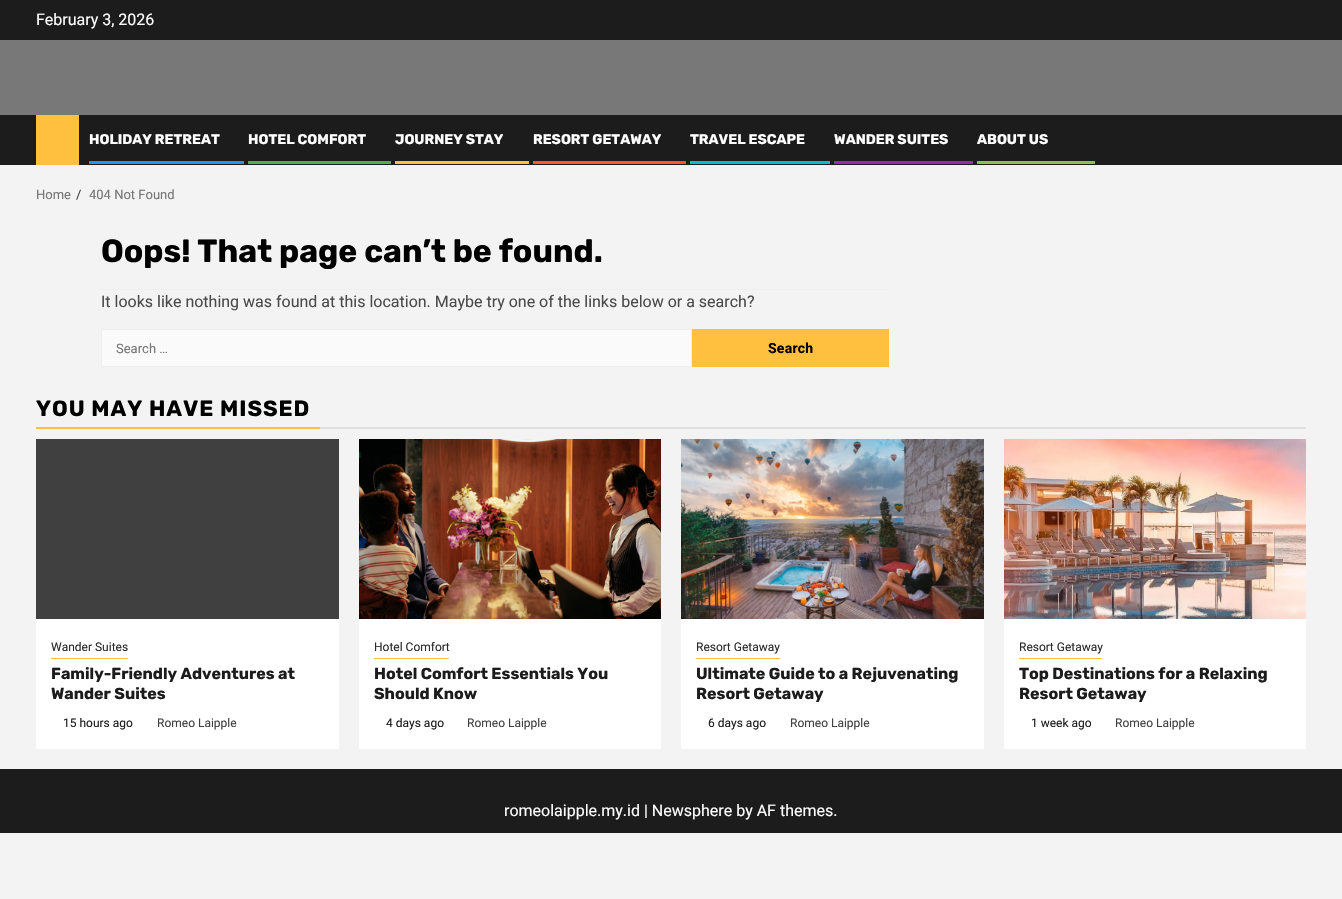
void draw(SkCanvas* c) {
SkPaint p;
p.setAntiAlias(true);
auto F=[&](const char* family, int weight, float size, bool italic = false){SkFontStyle style(weight, SkFontStyle::kNormal_Width,italic ? SkFontStyle::kItalic_Slant : SkFontStyle::kUpright_Slant);SkFont result(fontMgr->matchFamilyStyle(family, style), size);result.setSubpixel(true);return result;};
auto T=[&](const char* s, float x, float y, const SkFont& font){c->drawString(s, x, y, font, p);};
auto L=[&](const char* s, float x, float y, const SkFont& font, const SkPaint& ink, float letter, float word){std::vector<SkGlyphID> glyphs(font.countText(s, strlen(s), SkTextEncoding::kUTF8));std::vector<float> xs(glyphs.size());font.textToGlyphs(s, strlen(s), SkTextEncoding::kUTF8, glyphs);font.getXPos(glyphs, xs, x);float extra = 0;for (size_t i = 0; i < glyphs.size(); i++) {xs[i] += extra;extra += letter + word * (glyphs[i] == font.unicharToGlyph(' '));}c->drawTextBlob(SkTextBlob::MakeFromPosHGlyphs(glyphs, xs, y, font), 0, 0, ink);};
auto R=[&](float x, float y, float w, float h){c->drawRect(SkRect::MakeXYWH(x, y, w, h), p);};
auto I=[&](const char* path, float x, float y, float w, float h){auto image = SkImages::DeferredFromEncodedData(SkData::MakeFromFileName(path));c->drawImageRect(image, SkRect::MakeXYWH(x, y, w, h), SkSamplingOptions());};
c->clear(0xfff3f3f3);
p.setColor(0xff1c1c1c);
R(0,0,1342,40);
auto f1 = F("Roboto",400,16);
p.setColor(0xffffffff);
T("February 3, 2026",36,25,f1);
p.setColor(0xff787878);
R(0,40,1342,75);
p.setColor(0xff1c1c1c);
R(0,115,1342,50);
p.setColor(0xffffbf3f);
R(36,115,43,50);
auto f2 = F("Rubik",700,14);
p.setColor(0xffffffff);
T("HOLIDAY RETREAT",89,144,f2);
p.setColor(0xff2196f3);
R(89,161,155,3);
p.setColor(0xffffffff);
T("HOTEL COMFORT",248,144,f2);
p.setColor(0xff4caf50);
R(248,161,143,3);
p.setColor(0xffffffff);
T("JOURNEY STAY",395,144,f2);
p.setColor(0xffffbf3f);
R(395,161,134,3);
p.setColor(0xffffffff);
T("RESORT GETAWAY",533,144,f2);
p.setColor(0xffff5722);
R(533,161,153,3);
p.setColor(0xffffffff);
T("TRAVEL ESCAPE",690,144,f2);
p.setColor(0xff00bcd4);
R(690,161,140,3);
p.setColor(0xffffffff);
T("WANDER SUITES",834,144,f2);
p.setColor(0xff9c27b0);
R(834,161,139,3);
p.setColor(0xffffffff);
T("ABOUT US",977,144,f2);
p.setColor(0xff8bc34a);
R(977,161,118,3);
auto f3 = F("Roboto",400,13);
p.setColor(0xff757575);
T("Home",36,199,f3);
p.setColor(0xff393e46);
T("/",76,199,f3);
p.setColor(0xff757575);
T("404 Not Found",89,199,f3);
p.setColor(0xffeeeeee);
R(101,289,788,1);
auto f4 = F("Rubik",700,32);
p.setColor(0xff000000);
T("Oops! That page can’t be found.",101,262,f4);
p.setColor(0xff4a4a4a);
T("It looks like nothing was found at this location. Maybe try one of the links below or a search?",101,307,f1);
p.setColor(0xfffafafa);
c->drawRect(SkRect::MakeXYWH(101.5,329.5,590,37),p);
p.setStroke(true);
p.setStrokeWidth(1);
p.setColor(0xffeeeeee);
c->drawRect(SkRect::MakeXYWH(101.5,329.5,590,37),p);
p.setStroke(false);
p.setColor(0xff757575);
T("Search …",116,353,f3);
p.setColor(0xffffbf3f);
R(692,329,197,38);
auto f5 = F("Roboto",700,14);
p.setColor(0xff000000);
L("Search",768,353,f5,p,.25,0);
p.setColor(0xffffbf3f);
R(36,427,284,2);
auto f6 = F("Rubik",700,22);
p.setColor(0xff000000);
L("YOU MAY HAVE MISSED",36,416,f6,p,1,0);
p.setColor(0xffdedede);
R(320,427,986,2);
p.setColor(0xffffffff);
R(36,619,303,130);
p.setColor(0xff404040);
R(36,439,303,180);
p.setColor(0xffffbf3f);
R(51,658,77,1);
auto f7 = F("Roboto",400,12);
p.setColor(0xff2b2b2b);
T("Wander Suites",51,651,f7);
auto f8 = F("Rubik",700,16);
p.setColor(0xff1c1c1c);
T("Family-Friendly Adventures at",51,679,f8);
T("Wander Suites",51,699,f8);
T("15 hours ago",63,727,f7);
p.setColor(0xff404040);
T("Romeo Laipple",157,727,f7);
p.setColor(0xffffffff);
R(359,619,302,130);
I("1.png",359,439,302,180);
p.setColor(0xffffbf3f);
R(374,658,75,1);
p.setColor(0xff2b2b2b);
T("Hotel Comfort",374,651,f7);
p.setColor(0xff1c1c1c);
T("Hotel Comfort Essentials You",374,679,f8);
T("Should Know",374,699,f8);
T("4 days ago",386,727,f7);
p.setColor(0xff404040);
T("Romeo Laipple",467,727,f7);
p.setColor(0xffffffff);
R(681,619,303,130);
I("2.png",681,439,303,180);
p.setColor(0xffffbf3f);
R(696,658,84,1);
p.setColor(0xff2b2b2b);
T("Resort Getaway",696,651,f7);
p.setColor(0xff1c1c1c);
T("Ultimate Guide to a Rejuvenating",696,679,f8);
T("Resort Getaway",696,699,f8);
T("6 days ago",708,727,f7);
p.setColor(0xff404040);
T("Romeo Laipple",790,727,f7);
p.setColor(0xffffffff);
R(1004,619,302,130);
I("3.png",1004,439,302,180);
p.setColor(0xffffbf3f);
R(1019,658,83,1);
p.setColor(0xff2b2b2b);
T("Resort Getaway",1019,651,f7);
p.setColor(0xff1c1c1c);
T("Top Destinations for a Relaxing",1019,679,f8);
T("Resort Getaway",1019,699,f8);
T("1 week ago",1031,727,f7);
p.setColor(0xff404040);
T("Romeo Laipple",1115,727,f7);
p.setColor(0xff1c1c1c);
R(0,769,1342,64);
p.setColor(0xffffffff);
T("romeolaipple.my.id | Newsphere by AF themes.",504,816,f1);
}
